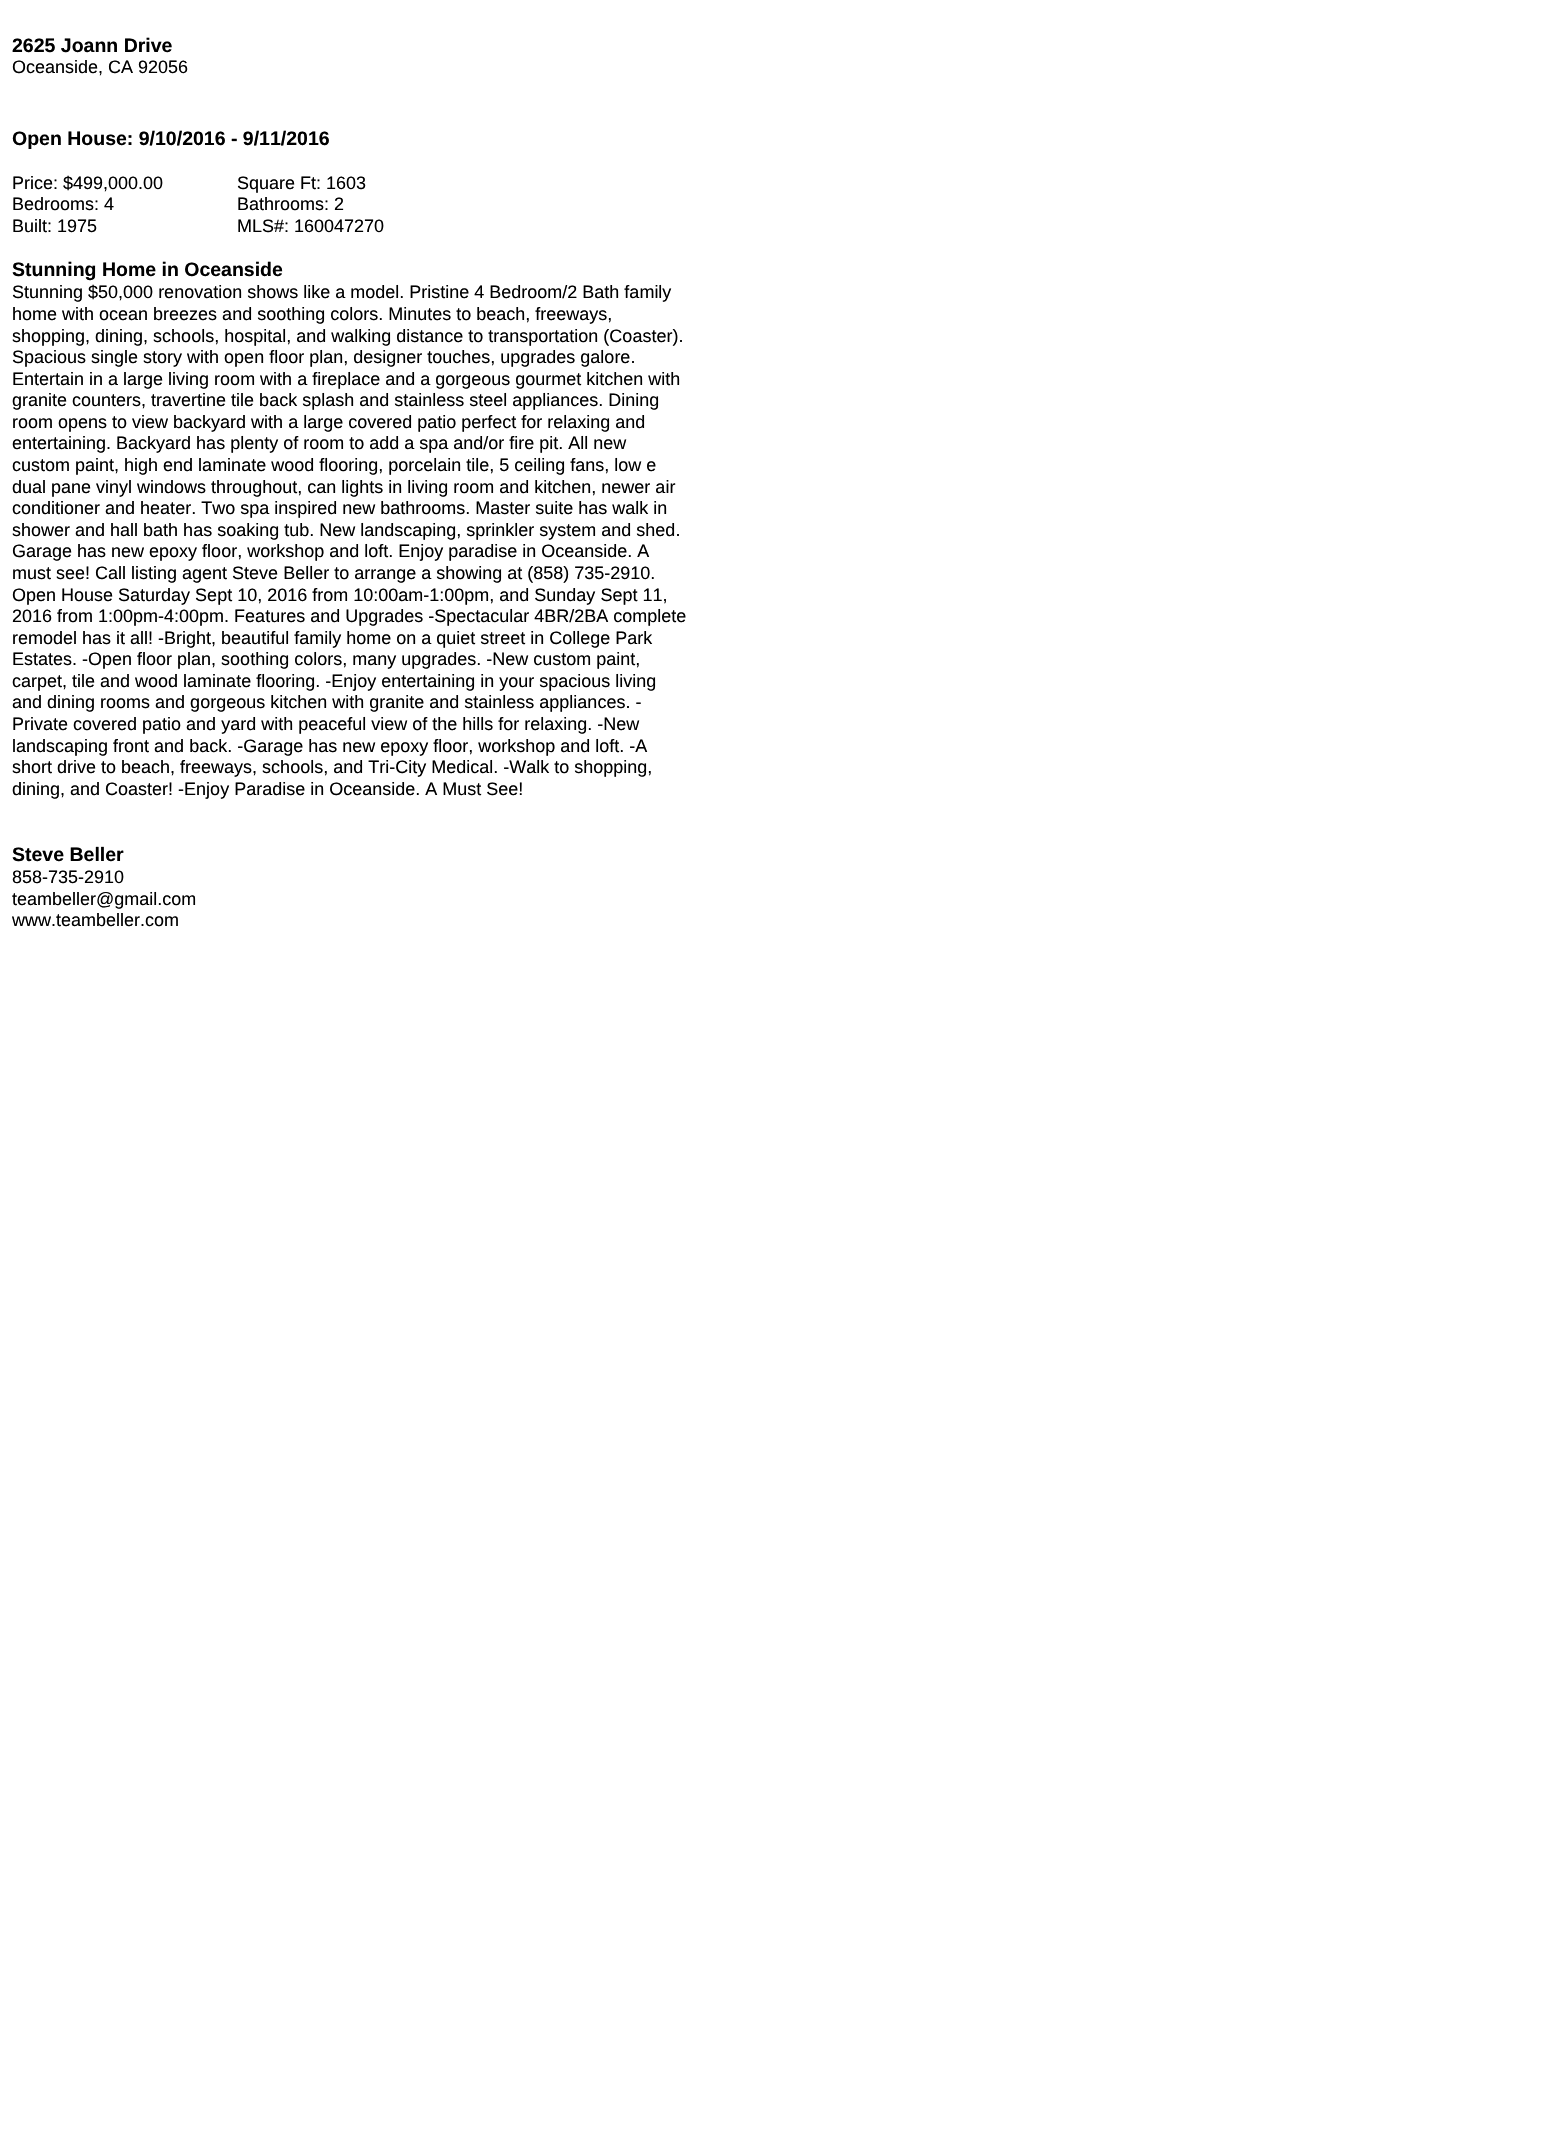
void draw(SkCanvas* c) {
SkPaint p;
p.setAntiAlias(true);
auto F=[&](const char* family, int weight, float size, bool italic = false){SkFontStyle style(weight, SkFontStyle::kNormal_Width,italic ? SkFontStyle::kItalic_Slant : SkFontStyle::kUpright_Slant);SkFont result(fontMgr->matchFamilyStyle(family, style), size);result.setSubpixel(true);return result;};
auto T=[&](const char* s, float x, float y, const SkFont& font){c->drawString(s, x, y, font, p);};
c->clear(0xffffffff);
auto f1 = F("Liberation Sans",700,19.5);
p.setColor(0xff000000);
T("2625 Joann Drive",12,52,f1);
auto f2 = F("Liberation Sans",400,18);
T("Oceanside, CA 92056",12,73,f2);
T("Open House: 9/10/2016 - 9/11/2016",12,145,f1);
T("Price: $499,000.00",12,189,f2);
T("Square Ft: 1603",237,189,f2);
T("Bedrooms: 4",12,210,f2);
T("Bathrooms: 2",237,210,f2);
T("Built: 1975",12,232,f2);
T("MLS#: 160047270",237,232,f2);
T("Stunning Home in Oceanside",12,276,f1);
T("Stunning $50,000 renovation shows like a model. Pristine 4 Bedroom/2 Bath family",12,298,f2);
T("home with ocean breezes and soothing colors. Minutes to beach, freeways,",12,320,f2);
T("shopping, dining, schools, hospital, and walking distance to transportation (Coaster).",12,342,f2);
T("Spacious single story with open floor plan, designer touches, upgrades galore.",12,363,f2);
T("Entertain in a large living room with a fireplace and a gorgeous gourmet kitchen with",12,385,f2);
T("granite counters, travertine tile back splash and stainless steel appliances. Dining",12,406,f2);
T("room opens to view backyard with a large covered patio perfect for relaxing and",12,428,f2);
T("entertaining. Backyard has plenty of room to add a spa and/or fire pit. All new",12,449,f2);
T("custom paint, high end laminate wood flooring, porcelain tile, 5 ceiling fans, low e",12,471,f2);
T("dual pane vinyl windows throughout, can lights in living room and kitchen, newer air",12,493,f2);
T("conditioner and heater. Two spa inspired new bathrooms. Master suite has walk in",12,514,f2);
T("shower and hall bath has soaking tub. New landscaping, sprinkler system and shed.",12,536,f2);
T("Garage has new epoxy floor, workshop and loft. Enjoy paradise in Oceanside. A",12,557,f2);
T("must see! Call listing agent Steve Beller to arrange a showing at (858) 735-2910.",12,579,f2);
T("Open House Saturday Sept 10, 2016 from 10:00am-1:00pm, and Sunday Sept 11,",12,601,f2);
T("2016 from 1:00pm-4:00pm. Features and Upgrades -Spectacular 4BR/2BA complete",12,622,f2);
T("remodel has it all! -Bright, beautiful family home on a quiet street in College Park",12,644,f2);
T("Estates. -Open floor plan, soothing colors, many upgrades. -New custom paint,",12,665,f2);
T("carpet, tile and wood laminate flooring. -Enjoy entertaining in your spacious living",12,687,f2);
T("and dining rooms and gorgeous kitchen with granite and stainless appliances. -",12,708,f2);
T("Private covered patio and yard with peaceful view of the hills for relaxing. -New",12,730,f2);
T("landscaping front and back. -Garage has new epoxy floor, workshop and loft. -A",12,752,f2);
T("short drive to beach, freeways, schools, and Tri-City Medical. -Walk to shopping,",12,773,f2);
T("dining, and Coaster! -Enjoy Paradise in Oceanside. A Must See!",12,795,f2);
T("Steve Beller",12,861,f1);
T("858-735-2910",12,883,f2);
T("teambeller@gmail.com",12,905,f2);
T("www.teambeller.com",12,926,f2);
}
